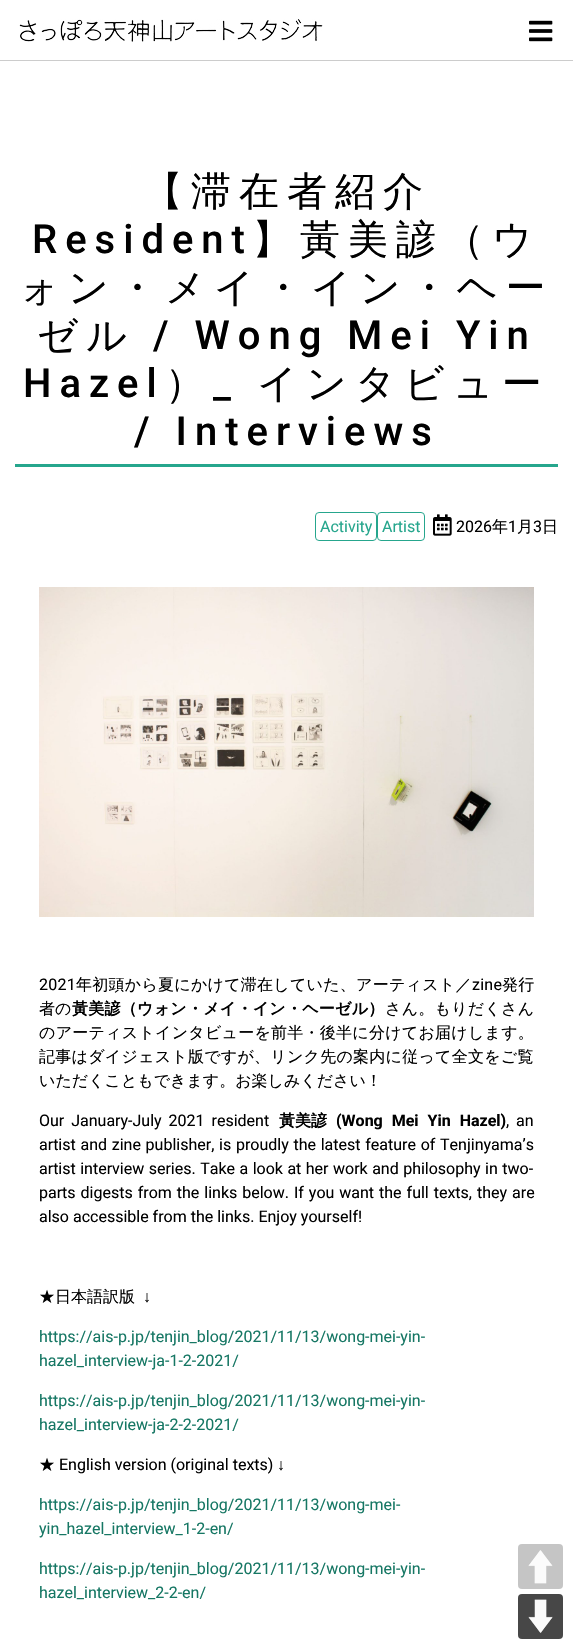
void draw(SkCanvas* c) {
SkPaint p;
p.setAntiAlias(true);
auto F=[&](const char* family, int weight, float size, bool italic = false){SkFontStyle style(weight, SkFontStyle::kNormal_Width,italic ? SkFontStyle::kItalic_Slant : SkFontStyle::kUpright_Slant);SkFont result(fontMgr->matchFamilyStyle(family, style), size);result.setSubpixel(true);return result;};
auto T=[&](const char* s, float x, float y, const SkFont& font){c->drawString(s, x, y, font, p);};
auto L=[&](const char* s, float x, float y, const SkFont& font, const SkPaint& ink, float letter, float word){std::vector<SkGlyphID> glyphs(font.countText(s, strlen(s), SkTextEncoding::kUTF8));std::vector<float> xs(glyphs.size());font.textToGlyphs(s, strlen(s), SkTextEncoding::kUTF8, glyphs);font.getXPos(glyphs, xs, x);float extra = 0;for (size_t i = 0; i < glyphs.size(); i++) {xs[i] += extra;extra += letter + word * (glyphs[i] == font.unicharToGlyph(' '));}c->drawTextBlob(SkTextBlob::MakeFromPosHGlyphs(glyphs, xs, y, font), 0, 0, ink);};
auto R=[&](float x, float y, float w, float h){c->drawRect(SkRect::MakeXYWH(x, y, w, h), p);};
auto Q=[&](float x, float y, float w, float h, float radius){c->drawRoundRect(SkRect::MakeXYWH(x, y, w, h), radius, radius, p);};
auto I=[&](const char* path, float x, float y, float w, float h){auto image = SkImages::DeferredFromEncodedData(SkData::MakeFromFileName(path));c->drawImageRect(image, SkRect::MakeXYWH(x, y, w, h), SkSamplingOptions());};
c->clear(0xffffffff);
p.setColor(0xffcccccc);
R(0,60,573,1);
I("1.png",19,19,304,23);
I("2.png",529,20,24,22);
p.setColor(0xff26a68d);
R(15,464,543,3);
auto f1 = F("WenQuanYi Zen Hei",500,40);
p.setColor(0xff000000);
L("【滞在者紹介",143,205,f1,p,8,0);
auto f2 = F("Roboto",500,40);
L("Resident",32,253,f2,p,8,0);
L("】黃美諺（ウ",252,253,f1,p,8,0);
L("ォン・メイ・イン・ヘー",19,301,f1,p,8,0);
L("ゼル",37,349,f1,p,8,0);
L("/ Wong Mei Yin",153,349,f2,p,8,0);
L("Hazel",23,397,f2,p,8,0);
L("）",165,397,f1,p,8,0);
L("_",213,397,f2,p,8,0);
L("インタビュー",257,397,f1,p,8,0);
L("/ Interviews",134,445,f2,p,8,0);
p.setStroke(true);
p.setStrokeWidth(1);
p.setColor(0xff26a68d);
c->drawRoundRect(SkRect::MakeXYWH(315.5,512.5,61,28),3.5,3.5,p);
auto f3 = F("Roboto",400,16);
p.setStroke(false);
T("Activity",320,532,f3);
p.setStroke(true);
c->drawRoundRect(SkRect::MakeXYWH(377.5,512.5,47,28),3.5,3.5,p);
p.setStroke(false);
T("Artist",382,532,f3);
I("3.png",433,514,19,22);
p.setColor(0xff000000);
T("2026",456,532,f3);
auto f4 = F("WenQuanYi Zen Hei",500,16);
T("年",492,532,f4);
T("1",508,532,f3);
T("月",517,532,f4);
T("3",533,532,f3);
T("日",542,532,f4);
I("4.png",39,587,495,330);
L("2021",39,990,f3,p,.25,0);
L("年初頭から夏にかけて滞在していた、アーティスト／",76,990,f4,p,.25,0);
L("zine",472,990,f3,p,.25,0);
L("発行",502,990,f4,p,.25,0);
T("者の",39,1014,f4);
auto f5 = F("WenQuanYi Zen Hei",700,16);
L("黃美諺（ウォン・メイ・イン・ヘーゼル）",72,1014,f5,p,.25,0);
L("さん。もりだくさん",385,1014,f4,p,.25,0);
L("のアーティストインタビューを前半・後半に分けてお届けします。",39,1038,f4,p,.25,0);
L("記事はダイジェスト版ですが、リンク先の案内に従って全文をご覧",39,1062,f4,p,.25,0);
T("いただくこともできます。お楽しみください！",39,1086,f4);
L("Our January-July 2021 resident",39,1126,f3,p,0,3);
T("黃美諺",279,1126,f5);
auto f6 = F("Roboto",700,16);
L("(Wong Mei Yin Hazel)",336,1126,f6,p,0,5);
L(", an",506,1126,f3,p,0,3);
L("artist and zine publisher, is proudly the latest feature of Tenjinyama’s",39,1150,f3,p,0,.75);
L("artist interview series. Take a look at her work and philosophy in two-",39,1174,f3,p,0,.5);
L("parts digests from the links below. If you want the full texts, they are",39,1198,f3,p,0,1);
T("also accessible from the links. Enjoy yourself!",39,1222,f3);
T("★日本語訳版",39,1302,f4);
auto f7 = F("Liberation Sans",400,16);
T("↓",143,1302,f7);
p.setColor(0xff167764);
T("https://ais-p.jp/tenjin_blog/2021/11/13/wong-mei-yin-",39,1342,f3);
T("hazel_interview-ja-1-2-2021/",39,1366,f3);
T("https://ais-p.jp/tenjin_blog/2021/11/13/wong-mei-yin-",39,1406,f3);
T("hazel_interview-ja-2-2-2021/",39,1430,f3);
p.setColor(0xff000000);
T("★",39,1470,f4);
T("English version (original texts)",59,1470,f3);
T("↓",277,1470,f7);
p.setColor(0xff167764);
T("https://ais-p.jp/tenjin_blog/2021/11/13/wong-mei-",39,1510,f3);
T("yin_hazel_interview_1-2-en/",39,1534,f3);
T("https://ais-p.jp/tenjin_blog/2021/11/13/wong-mei-yin-",39,1574,f3);
T("hazel_interview_2-2-en/",39,1598,f3);
p.setColor(0xfffafafa);
Q(518,1544,45,45,4);
I("5.png",518,1544,45,45);
p.setColor(0xffefefef);
Q(518,1594,45,45,4);
I("6.png",518,1594,45,45);
}
